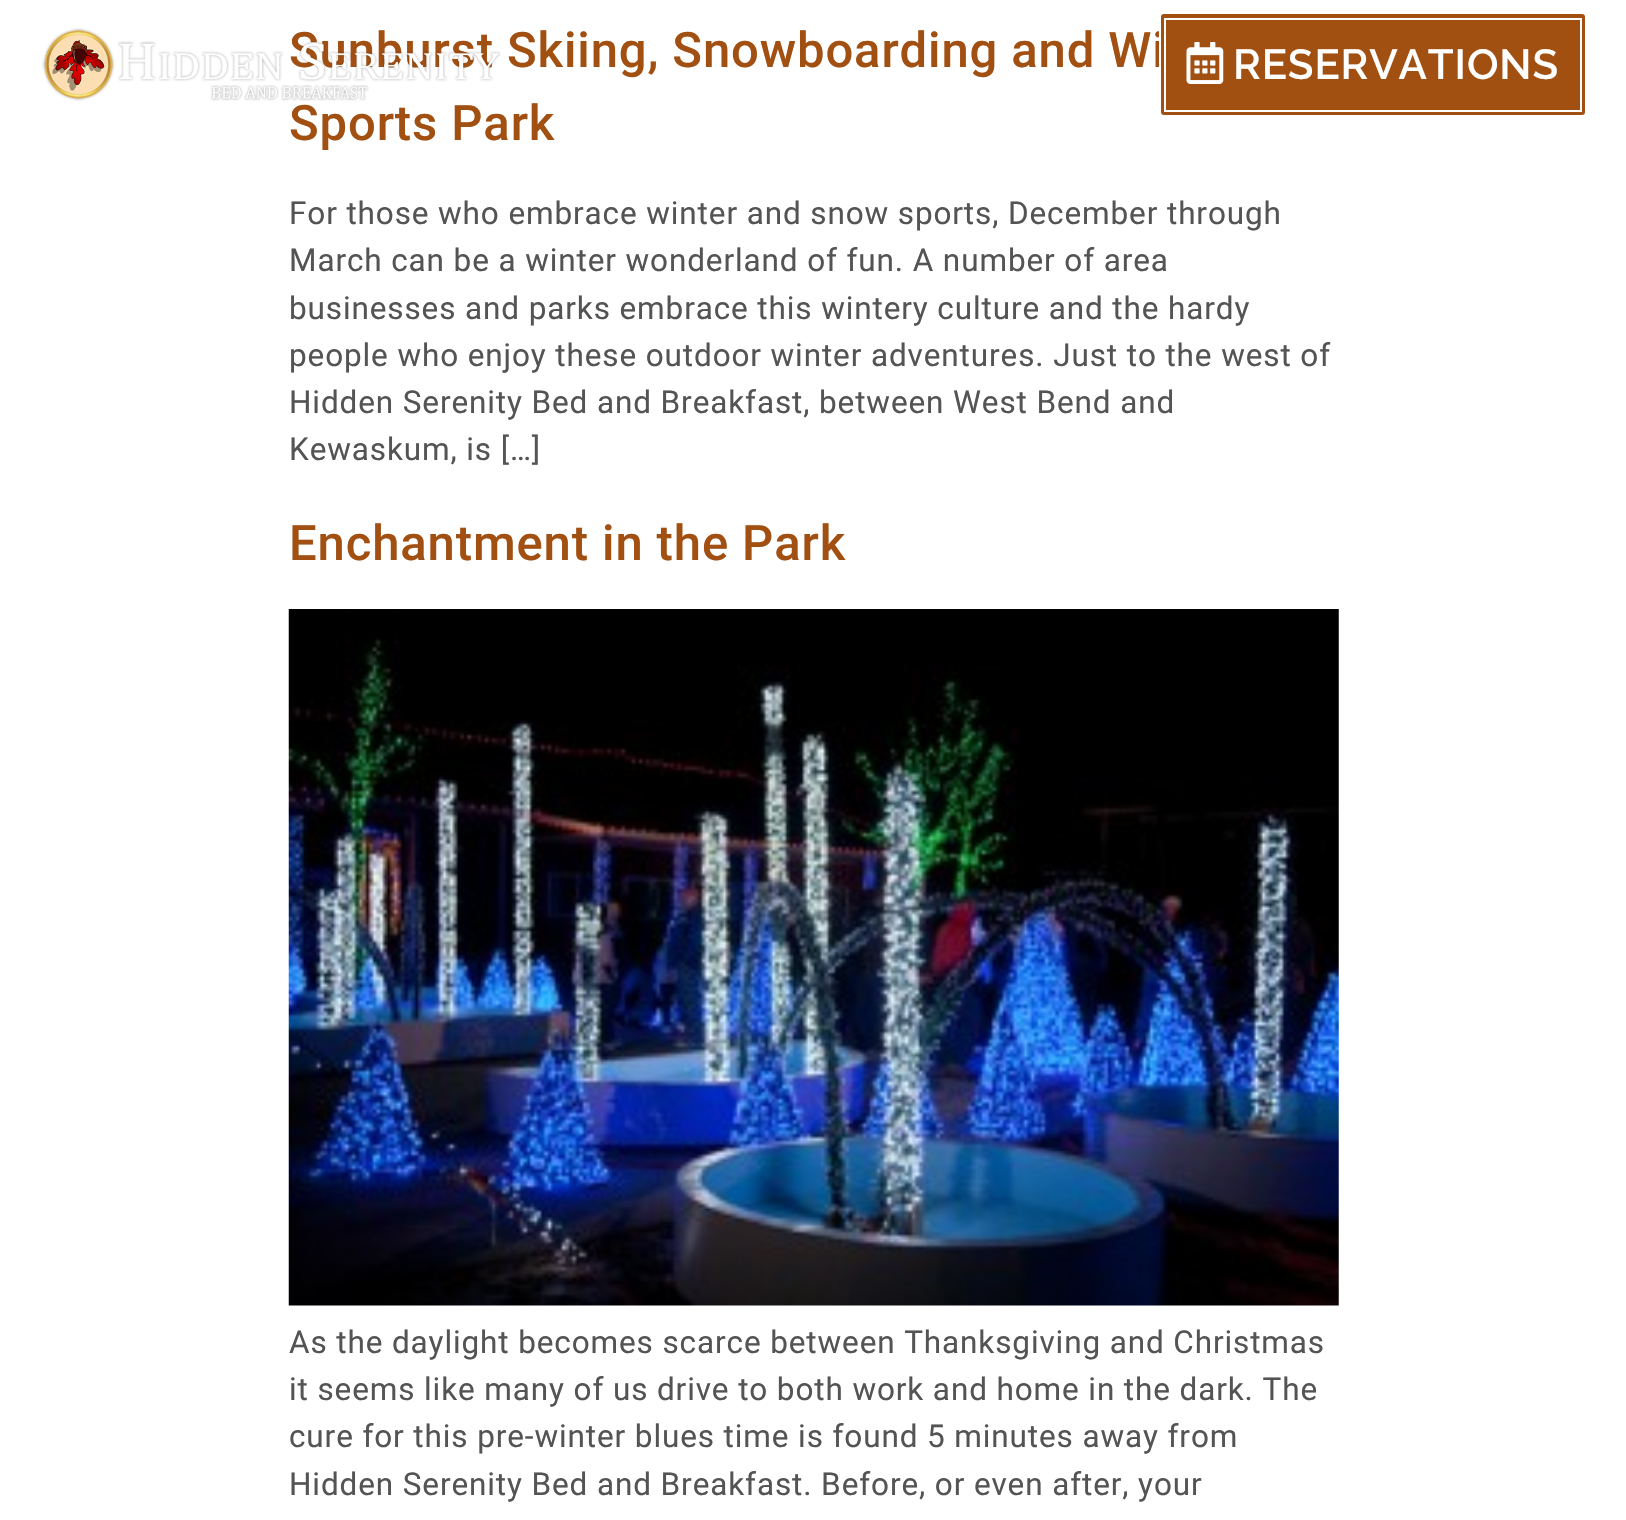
void draw(SkCanvas* c) {
SkPaint p;
p.setAntiAlias(true);
auto F=[&](const char* family, int weight, float size, bool italic = false){SkFontStyle style(weight, SkFontStyle::kNormal_Width,italic ? SkFontStyle::kItalic_Slant : SkFontStyle::kUpright_Slant);SkFont result(fontMgr->matchFamilyStyle(family, style), size);result.setSubpixel(true);return result;};
auto L=[&](const char* s, float x, float y, const SkFont& font, const SkPaint& ink, float letter, float word){std::vector<SkGlyphID> glyphs(font.countText(s, strlen(s), SkTextEncoding::kUTF8));std::vector<float> xs(glyphs.size());font.textToGlyphs(s, strlen(s), SkTextEncoding::kUTF8, glyphs);font.getXPos(glyphs, xs, x);float extra = 0;for (size_t i = 0; i < glyphs.size(); i++) {xs[i] += extra;extra += letter + word * (glyphs[i] == font.unicharToGlyph(' '));}c->drawTextBlob(SkTextBlob::MakeFromPosHGlyphs(glyphs, xs, y, font), 0, 0, ink);};
auto I=[&](const char* path, float x, float y, float w, float h){auto image = SkImages::DeferredFromEncodedData(SkData::MakeFromFileName(path));c->drawImageRect(image, SkRect::MakeXYWH(x, y, w, h), SkSamplingOptions());};
c->clear(0xffffffff);
auto f1 = F("Roboto",500,49);
p.setColor(0xffa24f12);
L("Sunburst Skiing, Snowboarding and Wi",289,67,f1,p,.88,0);
L("Sports Park",289,140,f1,p,.88,0);
auto f2 = F("Roboto",400,31.5);
p.setColor(0xff545454);
L("For those who embrace winter and snow sports, December through",289,224,f2,p,.88,0);
L("March can be a winter wonderland of fun. A number of area",289,271,f2,p,.88,0);
L("businesses and parks embrace this wintery culture and the hardy",289,319,f2,p,.88,0);
L("people who enjoy these outdoor winter adventures. Just to the west of",289,366,f2,p,.88,0);
L("Hidden Serenity Bed and Breakfast, between West Bend and",289,413,f2,p,.88,0);
L("Kewaskum, is […]",289,460,f2,p,.88,0);
p.setColor(0xffa24f12);
L("Enchantment in the Park",289,560,f1,p,.88,0);
I("1.png",288,609,1051,697);
p.setColor(0xff545454);
L("As the daylight becomes scarce between Thanksgiving and Christmas",289,1353,f2,p,.88,0);
L("it seems like many of us drive to both work and home in the dark. The",289,1400,f2,p,.88,0);
L("cure for this pre-winter blues time is found 5 minutes away from",289,1447,f2,p,.88,0);
L("Hidden Serenity Bed and Breakfast. Before, or even after, your",289,1495,f2,p,.88,0);
I("2.png",42,28,459,73);
p.setColor(0xffa24f12);
c->drawRoundRect(SkRect::MakeXYWH(1160,13,426,103),4,4,p);
p.setStroke(true);
p.setStrokeWidth(2);
p.setColor(0xffffffff);
c->drawRoundRect(SkRect::MakeXYWH(1160,13,426,103),4,4,p);
c->drawRect(SkRect::MakeXYWH(1165,19,416,92),p);
I("3.png",1186,42,38,42);
auto f3 = F("Raleway",600,42);
p.setStroke(false);
L("RESERVATIONS",1233,79,f3,p,.88,0);
}
